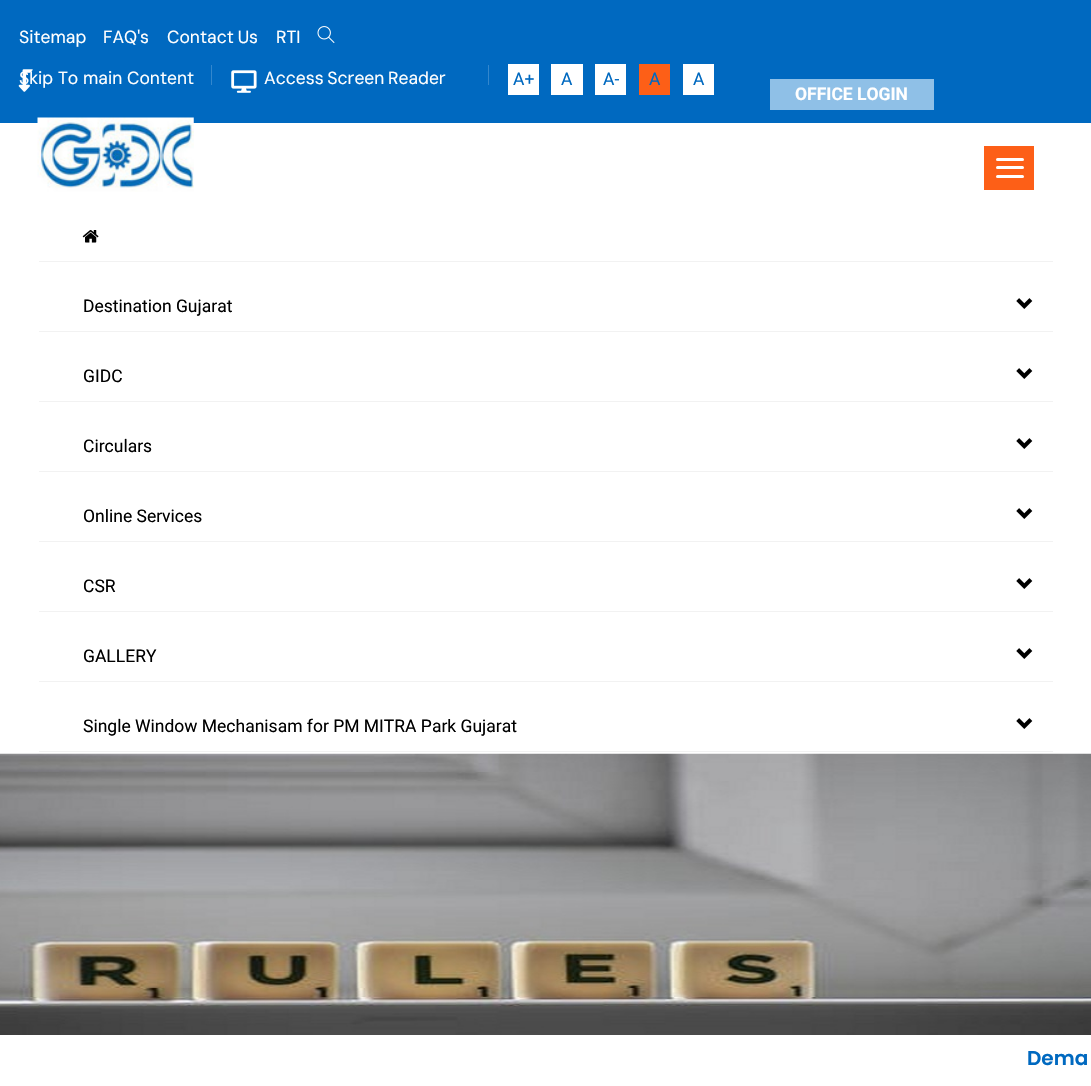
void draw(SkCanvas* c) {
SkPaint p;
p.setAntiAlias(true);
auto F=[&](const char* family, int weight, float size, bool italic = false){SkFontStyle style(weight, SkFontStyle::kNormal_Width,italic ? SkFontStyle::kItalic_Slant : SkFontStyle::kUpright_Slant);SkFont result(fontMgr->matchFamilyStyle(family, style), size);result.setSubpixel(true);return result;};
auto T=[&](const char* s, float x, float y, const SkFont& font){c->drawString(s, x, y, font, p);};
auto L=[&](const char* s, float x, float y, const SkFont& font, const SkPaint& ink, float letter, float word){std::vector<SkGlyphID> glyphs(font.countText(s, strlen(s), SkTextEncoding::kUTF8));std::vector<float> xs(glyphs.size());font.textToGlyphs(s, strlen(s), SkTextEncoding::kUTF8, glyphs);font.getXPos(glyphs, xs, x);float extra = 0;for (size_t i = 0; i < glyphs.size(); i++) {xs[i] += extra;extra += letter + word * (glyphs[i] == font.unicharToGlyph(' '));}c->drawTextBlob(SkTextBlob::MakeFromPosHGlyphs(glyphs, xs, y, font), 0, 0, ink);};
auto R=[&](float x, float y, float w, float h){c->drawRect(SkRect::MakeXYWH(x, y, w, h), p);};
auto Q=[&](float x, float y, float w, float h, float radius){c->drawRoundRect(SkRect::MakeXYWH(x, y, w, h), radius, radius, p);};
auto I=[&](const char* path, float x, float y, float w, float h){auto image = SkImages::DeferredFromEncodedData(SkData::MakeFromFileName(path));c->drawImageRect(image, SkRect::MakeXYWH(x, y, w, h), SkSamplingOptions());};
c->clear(0xffffffff);
p.setColor(0xff0069c0);
R(0,0,1091,123);
auto f1 = F("DM Sans",400,17.5);
p.setColor(0xffffffff);
T("Sitemap",19,43,f1);
T("FAQ's",103,43,f1);
L("Contact Us",167,43,f1,p,0,-1);
T("RTI",276,43,f1);
I("1.png",317,26,18,17);
T("Skip To main Content",19,84,f1);
I("2.png",18,69,15,23);
p.setColor(0xff3387cd);
R(211,65,1,20);
I("3.png",231,70,26,23);
p.setColor(0xffffffff);
L("Access Screen Reader",264,84,f1,p,0,-1);
p.setColor(0xff3387cd);
R(488,65,1,20);
p.setColor(0xffffffff);
R(508,64,31,31);
auto f2 = F("Roboto",400,17.5);
p.setColor(0xff0069c0);
T("A+",513,85,f2);
p.setColor(0xffffffff);
R(551,64,32,31);
p.setColor(0xff0069c0);
T("A",561,85,f2);
p.setColor(0xffffffff);
R(595,64,31,31);
p.setColor(0xff0069c0);
T("A-",603,85,f2);
p.setColor(0xfffd5f17);
R(639,64,31,31);
p.setColor(0xff0069c0);
T("A",649,85,f2);
p.setColor(0xffffffff);
R(683,64,31,31);
p.setColor(0xff0069c0);
T("A",693,85,f2);
p.setColor(0xff8fc0e7);
R(770,79,164,31);
auto f3 = F("Roboto",700,17.5);
p.setColor(0xffffffff);
T("OFFICE LOGIN",795,100,f3);
I("4.png",37,117,157,75);
p.setColor(0xfffd5f17);
R(984,146,50,44);
p.setColor(0xffffffff);
Q(996,158,28,3,1.5);
Q(996,166,28,3,1.5);
Q(996,175,28,3,1.5);
p.setColor(0xfff2f2f2);
R(39,261,1014,1);
I("5.png",82,230,17,13);
R(39,331,1014,1);
p.setColor(0xff000000);
T("Destination Gujarat",83,312,f2);
I("6.png",1016,298,17,11);
p.setColor(0xfff2f2f2);
R(39,401,1014,1);
p.setColor(0xff000000);
T("GIDC",83,382,f2);
I("6.png",1016,368,17,11);
p.setColor(0xfff2f2f2);
R(39,471,1014,1);
p.setColor(0xff000000);
T("Circulars",83,452,f2);
I("6.png",1016,438,17,11);
p.setColor(0xfff2f2f2);
R(39,541,1014,1);
p.setColor(0xff000000);
T("Online Services",83,522,f2);
I("6.png",1016,508,17,11);
p.setColor(0xfff2f2f2);
R(39,611,1014,1);
p.setColor(0xff000000);
T("CSR",83,592,f2);
I("6.png",1016,578,17,11);
p.setColor(0xfff2f2f2);
R(39,681,1014,1);
p.setColor(0xff000000);
T("GALLERY",83,662,f2);
I("6.png",1016,648,17,11);
p.setColor(0xfff2f2f2);
R(39,751,1014,1);
p.setColor(0xff000000);
T("Single Window Mechanisam for PM MITRA Park Gujarat",83,732,f2);
I("6.png",1016,718,17,11);
I("7.png",0,753,1091,282);
auto f4 = F("Poppins",600,20);
p.setColor(0xff0069c0);
T("Dema",1027,1065,f4);
}
